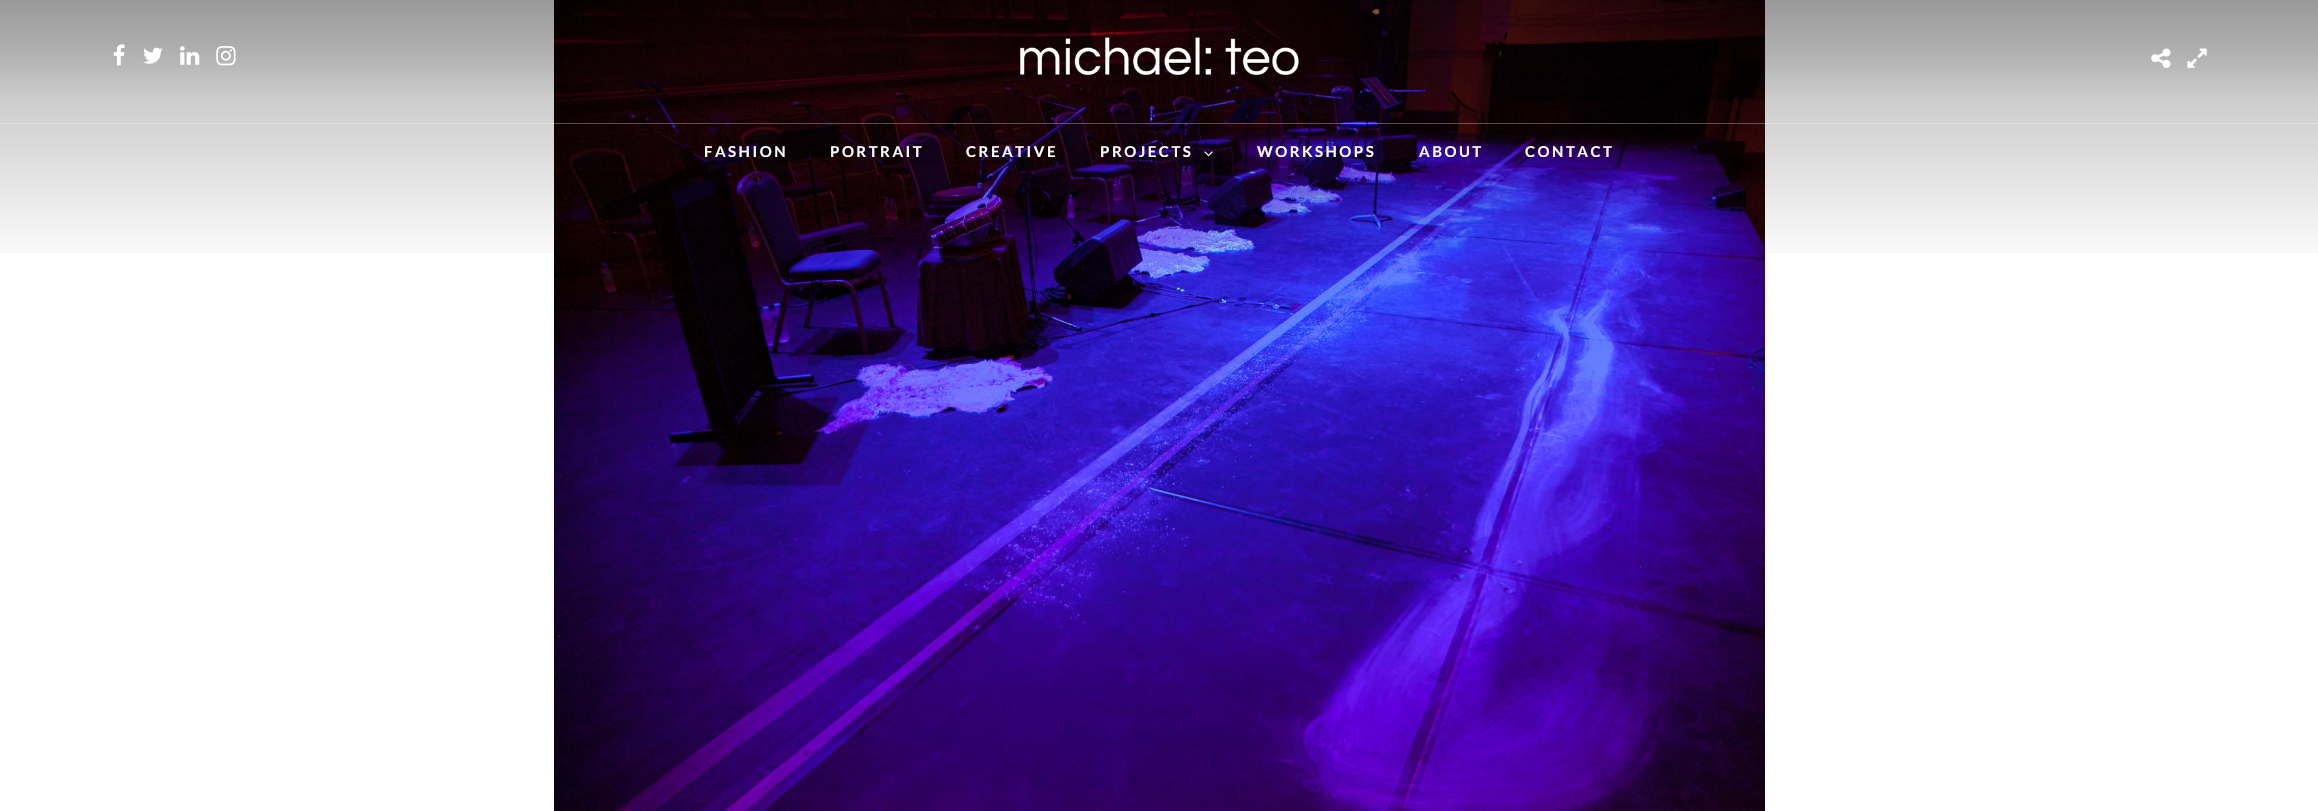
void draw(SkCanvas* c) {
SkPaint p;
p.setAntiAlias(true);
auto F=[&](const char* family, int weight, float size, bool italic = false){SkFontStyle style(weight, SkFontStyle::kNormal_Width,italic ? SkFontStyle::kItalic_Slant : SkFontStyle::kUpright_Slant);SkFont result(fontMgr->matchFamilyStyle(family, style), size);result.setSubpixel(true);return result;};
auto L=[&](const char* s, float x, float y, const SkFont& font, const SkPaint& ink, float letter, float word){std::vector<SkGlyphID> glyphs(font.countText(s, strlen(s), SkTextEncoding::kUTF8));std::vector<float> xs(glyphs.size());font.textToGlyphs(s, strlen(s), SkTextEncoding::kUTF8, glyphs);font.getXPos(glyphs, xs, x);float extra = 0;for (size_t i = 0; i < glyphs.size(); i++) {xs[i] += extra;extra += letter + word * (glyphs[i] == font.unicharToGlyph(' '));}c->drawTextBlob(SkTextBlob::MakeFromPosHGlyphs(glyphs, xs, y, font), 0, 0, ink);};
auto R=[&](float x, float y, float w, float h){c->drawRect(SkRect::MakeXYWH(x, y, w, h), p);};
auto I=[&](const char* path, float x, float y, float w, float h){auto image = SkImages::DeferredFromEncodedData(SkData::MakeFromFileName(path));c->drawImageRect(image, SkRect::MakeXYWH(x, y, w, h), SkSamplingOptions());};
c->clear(0xffffffff);
I("1.png",554,0,1211,811);
{
const SkColor colors[] = {0x66000000,0x4d000000,0x33000000,0x00000000};
const float stops[] = {0,.2,.35,.97};
const SkPoint ends[] = {{1159,0}, {1159,280}};
p.setShader(SkGradientShader::MakeLinear(ends, colors, stops, 4, SkTileMode::kClamp));
p.setAlpha(255);
}
R(0,0,2318,253);
p.setShader(nullptr);
p.setColor(0x4dffffff);
R(0,123,2318,1);
I("2.png",113,44,12,22);
I("3.png",143,47,20,17);
I("4.png",180,46,20,19);
I("5.png",216,46,20,20);
I("6.png",1020,37,279,38);
I("7.png",2151,48,20,20);
I("8.png",2187,48,20,20);
auto f1 = F("Lato",700,15);
p.setColor(0xffffffff);
L("FASHION",704,157,f1,p,2.5,0);
L("PORTRAIT",830,157,f1,p,2.5,0);
L("CREATIVE",966,157,f1,p,2.5,0);
L("PROJECTS",1100,157,f1,p,2.5,0);
I("9.png",1204,151,9,6);
L("WORKSHOPS",1257,157,f1,p,2.5,0);
L("ABOUT",1419,157,f1,p,2.5,0);
L("CONTACT",1525,157,f1,p,2.5,0);
}
